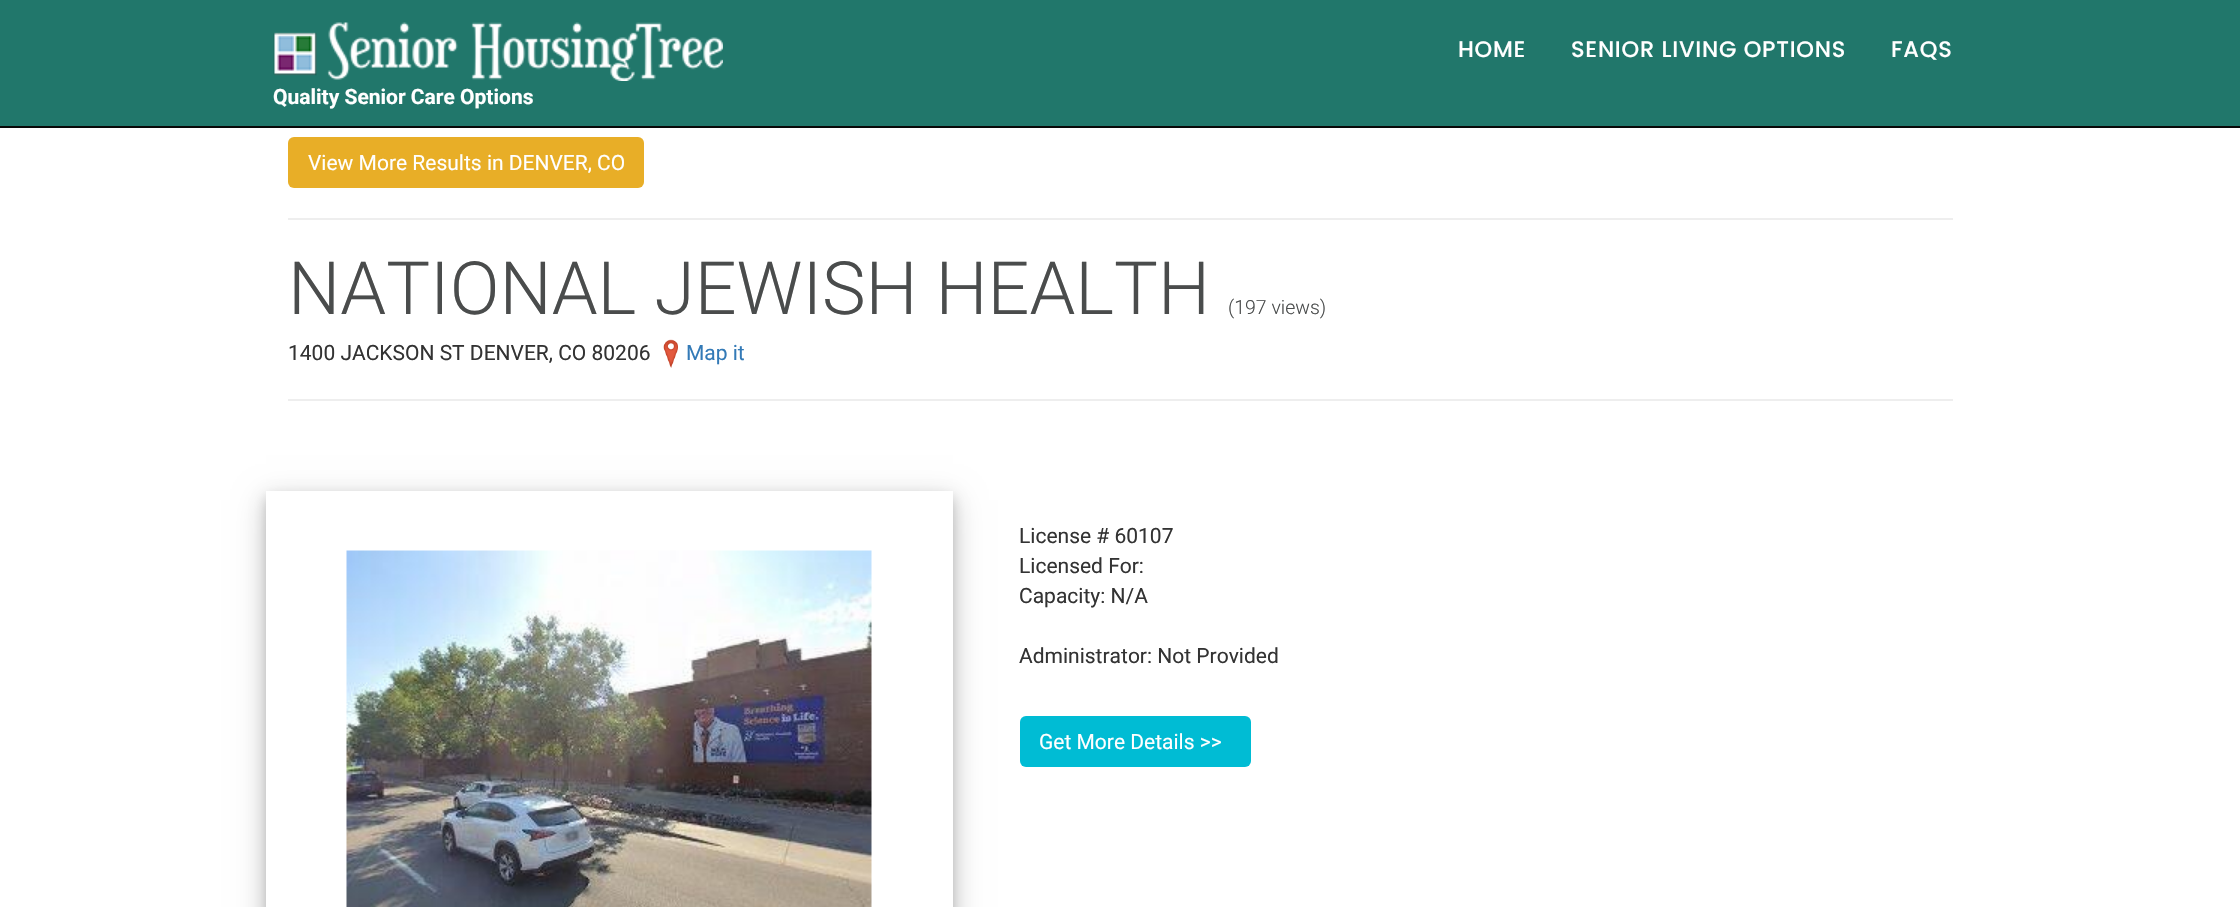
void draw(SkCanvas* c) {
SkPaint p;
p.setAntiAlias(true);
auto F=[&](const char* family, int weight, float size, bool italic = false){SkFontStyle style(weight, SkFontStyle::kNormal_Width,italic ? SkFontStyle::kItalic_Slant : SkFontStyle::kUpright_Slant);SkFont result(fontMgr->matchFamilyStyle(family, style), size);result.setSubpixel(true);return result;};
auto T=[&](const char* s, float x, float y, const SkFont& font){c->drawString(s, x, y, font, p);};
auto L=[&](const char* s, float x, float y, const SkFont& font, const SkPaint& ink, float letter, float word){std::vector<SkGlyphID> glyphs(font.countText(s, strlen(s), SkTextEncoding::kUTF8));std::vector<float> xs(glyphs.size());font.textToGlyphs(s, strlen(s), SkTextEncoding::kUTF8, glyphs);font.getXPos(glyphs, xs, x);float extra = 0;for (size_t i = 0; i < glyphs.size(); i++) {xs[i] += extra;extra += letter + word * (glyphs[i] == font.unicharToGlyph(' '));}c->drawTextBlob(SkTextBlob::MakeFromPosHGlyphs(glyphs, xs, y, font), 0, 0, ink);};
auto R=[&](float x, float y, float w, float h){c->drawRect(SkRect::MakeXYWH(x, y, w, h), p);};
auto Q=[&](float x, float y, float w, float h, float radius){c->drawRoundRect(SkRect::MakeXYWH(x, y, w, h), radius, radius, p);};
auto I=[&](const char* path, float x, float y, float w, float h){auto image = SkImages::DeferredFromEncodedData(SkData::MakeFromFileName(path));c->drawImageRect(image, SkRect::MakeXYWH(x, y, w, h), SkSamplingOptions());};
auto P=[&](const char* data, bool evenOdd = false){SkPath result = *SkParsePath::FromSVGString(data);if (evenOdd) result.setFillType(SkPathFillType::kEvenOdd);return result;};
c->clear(0xffffffff);
p.setColor(0xff21776b);
R(0,0,2240,126);
p.setColor(0xff080808);
R(0,126,2240,2);
auto f1 = F("Poppins",500,22.5);
p.setColor(0xffffffff);
L("HOME",1458,57,f1,p,.75,0);
L("SENIOR LIVING OPTIONS",1571,57,f1,p,.75,0);
L("FAQS",1891,57,f1,p,.75,0);
I("1.png",273,22,450,59);
auto f2 = F("Roboto",700,21);
T("Quality Senior Care Options",273,104,f2);
p.setColor(0xffe8ae27);
Q(288,137,356,51,6);
auto f3 = F("Roboto",400,21);
p.setColor(0xffffffff);
T("View More Results in DENVER, CO",308,170,f3);
p.setColor(0xffeeeeee);
R(288,218,1665,2);
auto f4 = F("Roboto",300,73.5);
p.setColor(0xff4a4c4c);
T("NATIONAL JEWISH HEALTH",288,314,f4);
auto f5 = F("Roboto",300,19.5);
T("(197 views)",1228,314,f5);
p.setColor(0xff333333);
T("1400 JACKSON ST DENVER, CO 80206",288,360,f3);
I("2.png",663,339,15,29);
p.setColor(0xff337ab7);
T("Map it",686,360,f3);
p.setColor(0xffeeeeee);
R(288,399,1665,2);
c->save();
c->clipPath(P("M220 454h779v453h-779zm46 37h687v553h-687z",true),true);
p.setColor(0x30000000);
p.setMaskFilter(SkMaskFilter::MakeBlur(kNormal_SkBlurStyle, 15));
c->drawRect(SkRect::MakeXYWH(266,500,687,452),p);
p.setMaskFilter(nullptr);
c->restore();
c->save();
c->clipPath(P("M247 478h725v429h-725zm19 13h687v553h-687z",true),true);
p.setColor(0x33000000);
p.setMaskFilter(SkMaskFilter::MakeBlur(kNormal_SkBlurStyle, 6));
c->drawRect(SkRect::MakeXYWH(266,497,687,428),p);
p.setMaskFilter(nullptr);
c->restore();
I("3.png",346,550,526,357);
p.setColor(0xff333333);
T("License # 60107",1019,543,f3);
T("Licensed For:",1019,573,f3);
T("Capacity: N/A",1019,603,f3);
T("Administrator: Not Provided",1019,663,f3);
p.setColor(0xff00bcd4);
Q(1020,716,231,51,6);
p.setColor(0xffffffff);
T("Get More Details >>",1039,749,f3);
}
